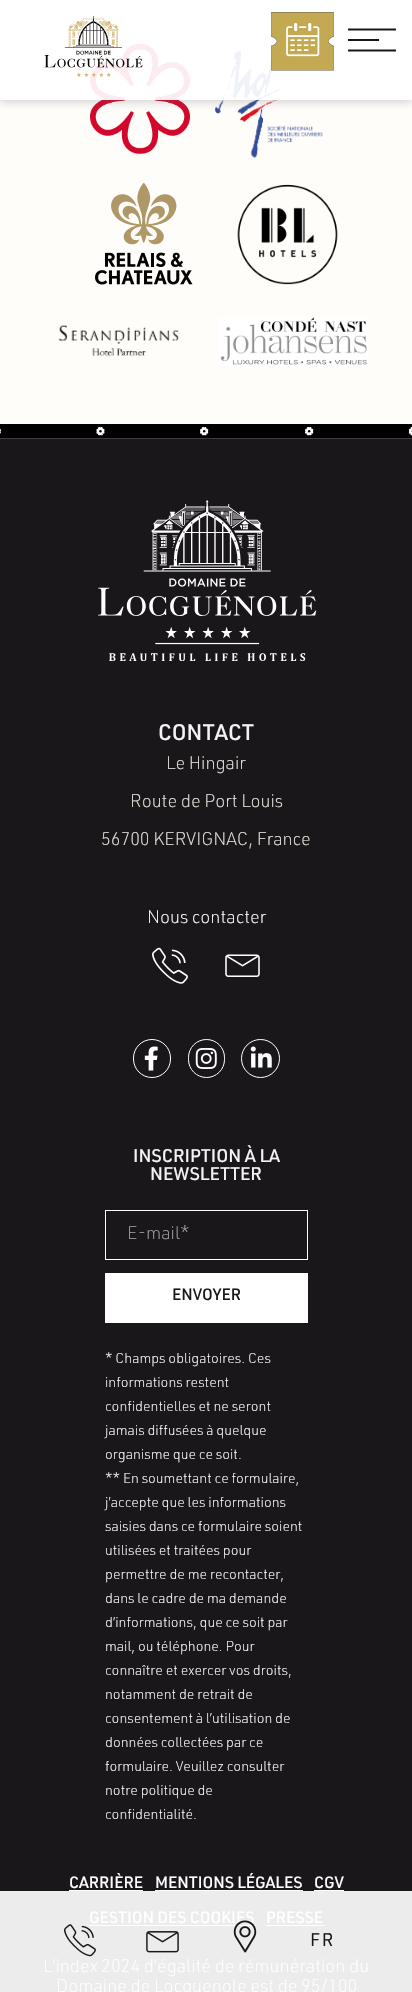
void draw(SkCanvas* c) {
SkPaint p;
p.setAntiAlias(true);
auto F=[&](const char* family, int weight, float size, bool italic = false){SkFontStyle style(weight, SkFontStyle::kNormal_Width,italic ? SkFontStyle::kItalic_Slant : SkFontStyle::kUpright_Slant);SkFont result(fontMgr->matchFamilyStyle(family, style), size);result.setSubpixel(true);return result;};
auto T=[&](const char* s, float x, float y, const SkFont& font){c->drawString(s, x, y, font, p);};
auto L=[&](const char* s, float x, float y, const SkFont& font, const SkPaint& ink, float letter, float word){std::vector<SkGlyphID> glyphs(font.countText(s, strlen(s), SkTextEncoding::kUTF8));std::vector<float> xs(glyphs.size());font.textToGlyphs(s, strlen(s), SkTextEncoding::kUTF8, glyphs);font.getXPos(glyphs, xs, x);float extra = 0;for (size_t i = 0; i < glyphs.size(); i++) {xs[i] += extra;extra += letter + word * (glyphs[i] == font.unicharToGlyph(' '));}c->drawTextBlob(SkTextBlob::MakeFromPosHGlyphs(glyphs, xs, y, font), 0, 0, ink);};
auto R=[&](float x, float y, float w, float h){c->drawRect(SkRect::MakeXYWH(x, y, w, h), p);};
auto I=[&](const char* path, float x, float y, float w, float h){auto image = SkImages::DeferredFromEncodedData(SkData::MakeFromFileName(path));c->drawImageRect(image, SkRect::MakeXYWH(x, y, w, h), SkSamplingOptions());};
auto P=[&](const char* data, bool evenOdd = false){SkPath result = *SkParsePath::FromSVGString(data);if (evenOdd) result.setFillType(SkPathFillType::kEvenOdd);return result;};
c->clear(0xfffffdfa);
I("3.png",90,43,100,111);
I("4.png",215,41,108,117);
c->save();
c->clipRect(SkRect::MakeXYWH(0,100,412,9));
p.setColor(0x545f5f5f);
p.setMaskFilter(SkMaskFilter::MakeBlur(kNormal_SkBlurStyle, 5));
c->drawRect(SkRect::MakeXYWH(0,1,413,100),p);
p.setMaskFilter(nullptr);
c->restore();
p.setColor(0xebffffff);
R(0,0,412,100);
I("1.png",44,16,99,61);
I("2.png",271,12,63,59);
p.setStroke(true);
p.setStrokeWidth(2.1);
p.setColor(0xff1a171b);
c->drawPath(P("M348 29.5h48m-48 21h48"),p);
p.setStroke(false);
R(348,39,31,2);
I("5.png",95,183,98,102);
I("6.png",237,184,101,101);
I("7.png",58,325,121,32);
I("8.png",219,317,149,49);
R(0,438,412,1453);
I("9.png",0,424,412,15);
p.setColor(0xffedeced);
R(0,1891,412,101);
I("10.png",98,500,219,161);
auto f1 = F("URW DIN",500,22);
p.setColor(0xfff4f3f4);
T("CONTACT",158,740,f1);
auto f2 = F("URW DIN",300,18);
p.setColor(0xffe8e3dc);
T("Le Hingair",166,769,f2);
T("Route de Port Louis",130,807,f2);
T("56700 KERVIGNAC, France",101,845,f2);
p.setColor(0xffffffff);
T("Nous contacter",147,923,f2);
I("11.png",152,947,36,37);
I("12.png",225,954,35,23);
p.setStroke(true);
p.setStrokeWidth(1);
c->drawRoundRect(SkRect::MakeXYWH(133.5,1039.5,37,38),18.5,18.5,p);
I("13.png",144,1046,14,25);
c->drawRoundRect(SkRect::MakeXYWH(188.5,1039.5,36,38),18,18,p);
I("14.png",195,1047,22,22);
c->drawCircle(260.5,1058.5,19,p);
I("15.png",250,1046,22,22);
auto f3 = F("URW DIN",500,18);
p.setStroke(false);
p.setColor(0xfff4f3f4);
T("INSCRIPTION À LA",133,1162,f3);
T("NEWSLETTER",150,1180,f3);
p.setStroke(true);
p.setColor(0xffffffff);
c->drawRect(SkRect::MakeXYWH(105.5,1210.5,202,49),p);
p.setStroke(false);
p.setColor(0xffa3a2a4);
T("E-mail*",127,1239,f2);
p.setColor(0xffffffff);
R(105,1273,203,50);
auto f4 = F("URW DIN",500,16);
p.setColor(0xff1a171b);
T("ENVOYER",172,1300,f4);
auto f5 = F("URW DIN",300,14);
p.setColor(0xffffffff);
T("* Champs obligatoires. Ces",105,1363,f5);
T("informations restent",105,1387,f5);
T("confidentielles et ne seront",105,1411,f5);
T("jamais diffusées à quelque",105,1435,f5);
T("organisme que ce soit.",105,1459,f5);
T("** En soumettant ce formulaire,",105,1483,f5);
T("j’accepte que les informations",105,1507,f5);
T("saisies dans ce formulaire soient",105,1531,f5);
T("utilisées et traitées pour",105,1555,f5);
T("permettre de me recontacter,",105,1579,f5);
T("dans le cadre de ma demande",105,1603,f5);
T("d’informations, que ce soit par",105,1627,f5);
T("mail, ou téléphone. Pour",105,1651,f5);
T("connaître et exercer vos droits,",105,1675,f5);
T("notamment de retrait de",105,1699,f5);
T("consentement à l’utilisation de",105,1723,f5);
T("données collectées par ce",105,1747,f5);
T("formulaire. Veuillez consulter",105,1771,f5);
T("notre politique de",105,1795,f5);
T("confidentialité.",105,1819,f5);
T("CARRIÈRE",69,1888,f4);
R(69,1890,74,1);
T("MENTIONS LÉGALES",155,1888,f4);
R(155,1890,148,1);
T("CGV",314,1888,f4);
R(314,1890,30,1);
T("GESTION DES COOKIES",89,1923,f4);
R(89,1925,166,1);
T("PRESSE",266,1923,f4);
R(266,1925,58,1);
T("L’index 2024 d’égalité de rémunération du",43,1972,f2);
T("Domaine de Locguenole est de 95/100",56,1992,f2);
I("16.png",64,1924,32,33);
I("17.png",146,1931,33,22);
I("18.png",233,1920,24,33);
auto f6 = F("URW DIN",400,18);
p.setColor(0xff1a171b);
L("FR",310,1946,f6,p,2,0);
}
